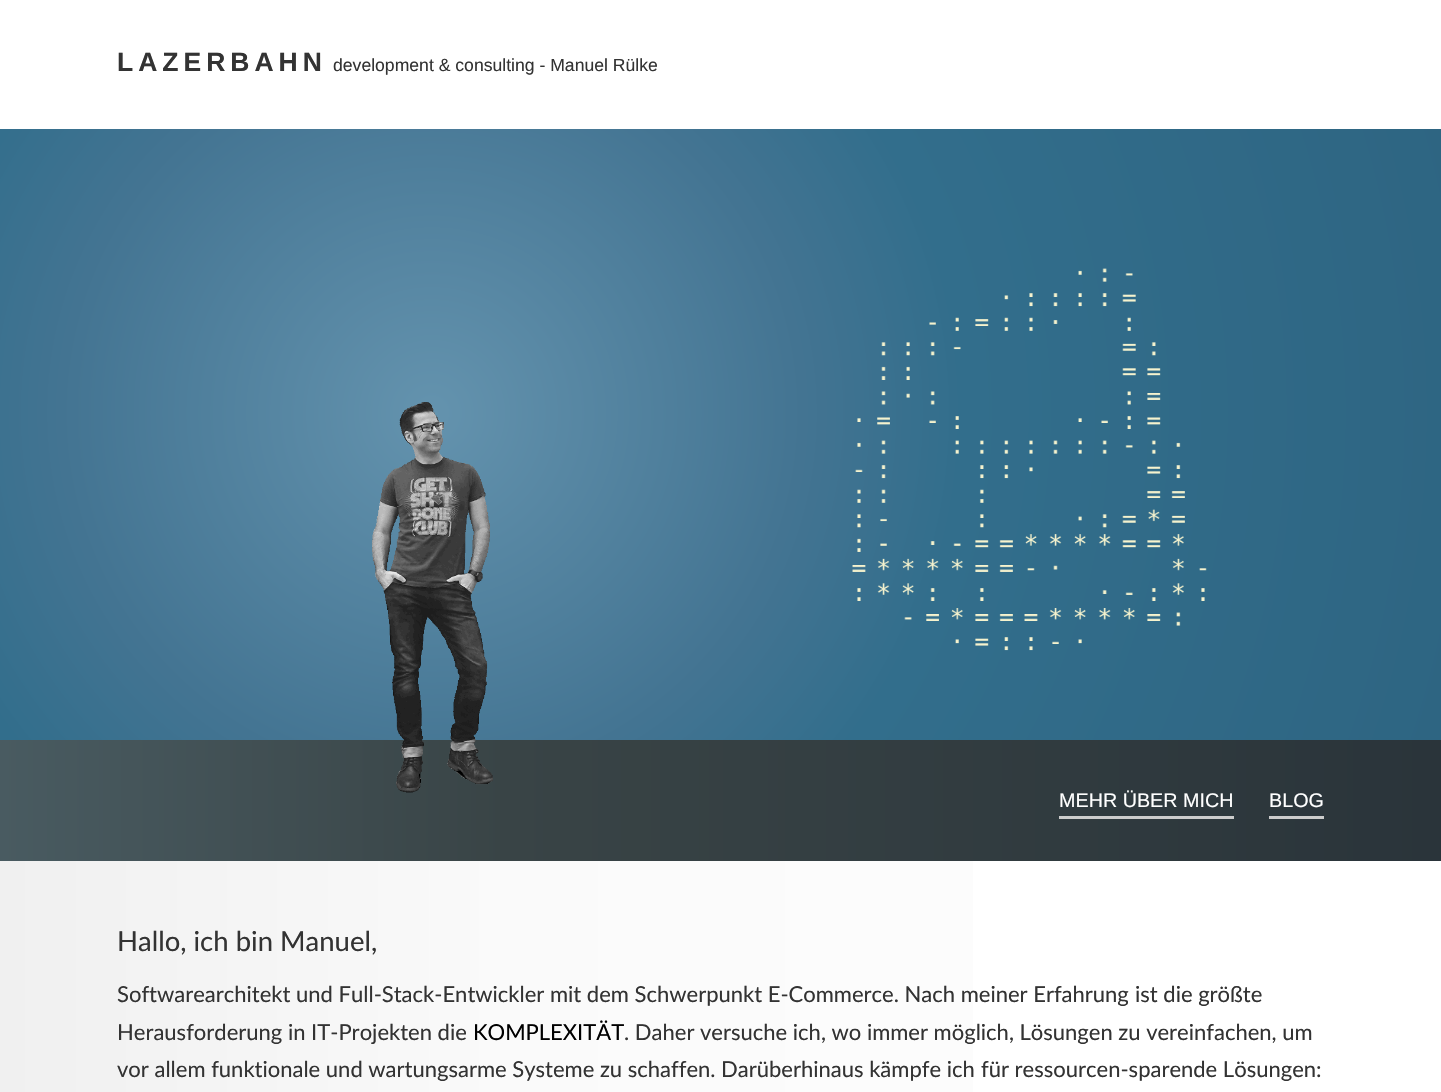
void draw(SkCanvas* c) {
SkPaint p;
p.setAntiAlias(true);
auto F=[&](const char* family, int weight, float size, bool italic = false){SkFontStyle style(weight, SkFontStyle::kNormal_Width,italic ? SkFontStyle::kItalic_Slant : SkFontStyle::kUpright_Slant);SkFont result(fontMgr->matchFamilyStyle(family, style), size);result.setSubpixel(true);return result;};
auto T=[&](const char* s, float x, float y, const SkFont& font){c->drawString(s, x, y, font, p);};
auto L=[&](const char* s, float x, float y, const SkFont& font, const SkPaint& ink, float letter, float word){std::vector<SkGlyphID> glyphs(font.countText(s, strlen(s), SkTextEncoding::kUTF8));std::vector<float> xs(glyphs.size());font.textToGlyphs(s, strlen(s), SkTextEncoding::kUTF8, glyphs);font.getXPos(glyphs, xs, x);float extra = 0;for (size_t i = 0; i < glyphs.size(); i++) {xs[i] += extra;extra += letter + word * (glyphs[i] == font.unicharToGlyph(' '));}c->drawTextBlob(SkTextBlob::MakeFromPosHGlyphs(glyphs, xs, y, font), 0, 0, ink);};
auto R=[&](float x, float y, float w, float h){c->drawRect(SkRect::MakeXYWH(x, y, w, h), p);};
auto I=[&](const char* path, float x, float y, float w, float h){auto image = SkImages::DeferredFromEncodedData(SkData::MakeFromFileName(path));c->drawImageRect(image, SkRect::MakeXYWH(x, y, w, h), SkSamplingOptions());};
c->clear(0xffffffff);
{
const SkColor colors[] = {0xfff0f0f0,0xfffafafa,0xffffffff};
const float stops[] = {0,.35,1};
const SkPoint ends[] = {{0,546}, {1441,546}};
p.setShader(SkGradientShader::MakeLinear(ends, colors, stops, 3, SkTileMode::kClamp));
p.setAlpha(255);
}
R(0,861,973,231);
auto f1 = F("Liberation Sans",700,26.5);
p.setShader(nullptr);
p.setColor(0xff333333);
L("LAZERBAHN",117,71,f1,p,5,0);
auto f2 = F("Liberation Sans",400,17.6);
T("development & consulting - Manuel Rülke",333,71,f2);
{
const SkColor colors[] = {0xff6493ae,0xff437492,0xff326e8c,0xff2e6582};
const float stops[] = {0,.35,.5,1};
p.setShader(SkGradientShader::MakeRadial({432,413}, 1061, colors, stops, 4, SkTileMode::kClamp));
p.setAlpha(255);
}
R(0,129,1441,611);
{
const SkColor colors[] = {0xff495b61,0xff394446,0xff2a343a};
const float stops[] = {0,.35,1};
const SkPoint ends[] = {{0,801}, {1441,801}};
p.setShader(SkGradientShader::MakeLinear(ends, colors, stops, 3, SkTileMode::kClamp));
p.setAlpha(255);
}
R(0,740,1441,121);
I("1.png",372,402,121,391);
I("2.png",852,268,355,383);
auto f3 = F("Liberation Sans",400,19.75);
p.setShader(nullptr);
p.setColor(0xffffffff);
T("MEHR ÜBER MICH",1059,807,f3);
p.setColor(0xffcccccc);
R(1059,816,175,3);
p.setColor(0xffffffff);
T("BLOG",1269,807,f3);
p.setColor(0xffcccccc);
R(1269,816,55,3);
auto f4 = F("Lato",400,27.5);
p.setColor(0xff333333);
T("Hallo, ich bin Manuel,",117,951,f4);
auto f5 = F("Lato",400,22);
T("Softwarearchitekt und Full-Stack-Entwickler mit dem Schwerpunkt E-Commerce. Nach meiner Erfahrung",117,1002,f5);
T("ist die größte",1135,1002,f5);
T("Herausforderung in IT-Projekten die",117,1040,f5);
p.setColor(0xff000000);
T("KOMPLEXITÄT",473,1040,f5);
p.setColor(0xff333333);
T(". Daher versuche ich, wo immer möglich, Lösungen zu vereinfachen, um",624,1040,f5);
T("vor allem funktionale und wartungsarme Systeme zu schaffen. Darüberhinaus kämpfe ich",117,1077,f5);
T("für ressourcen-sparende Lösungen:",981,1077,f5);
}
